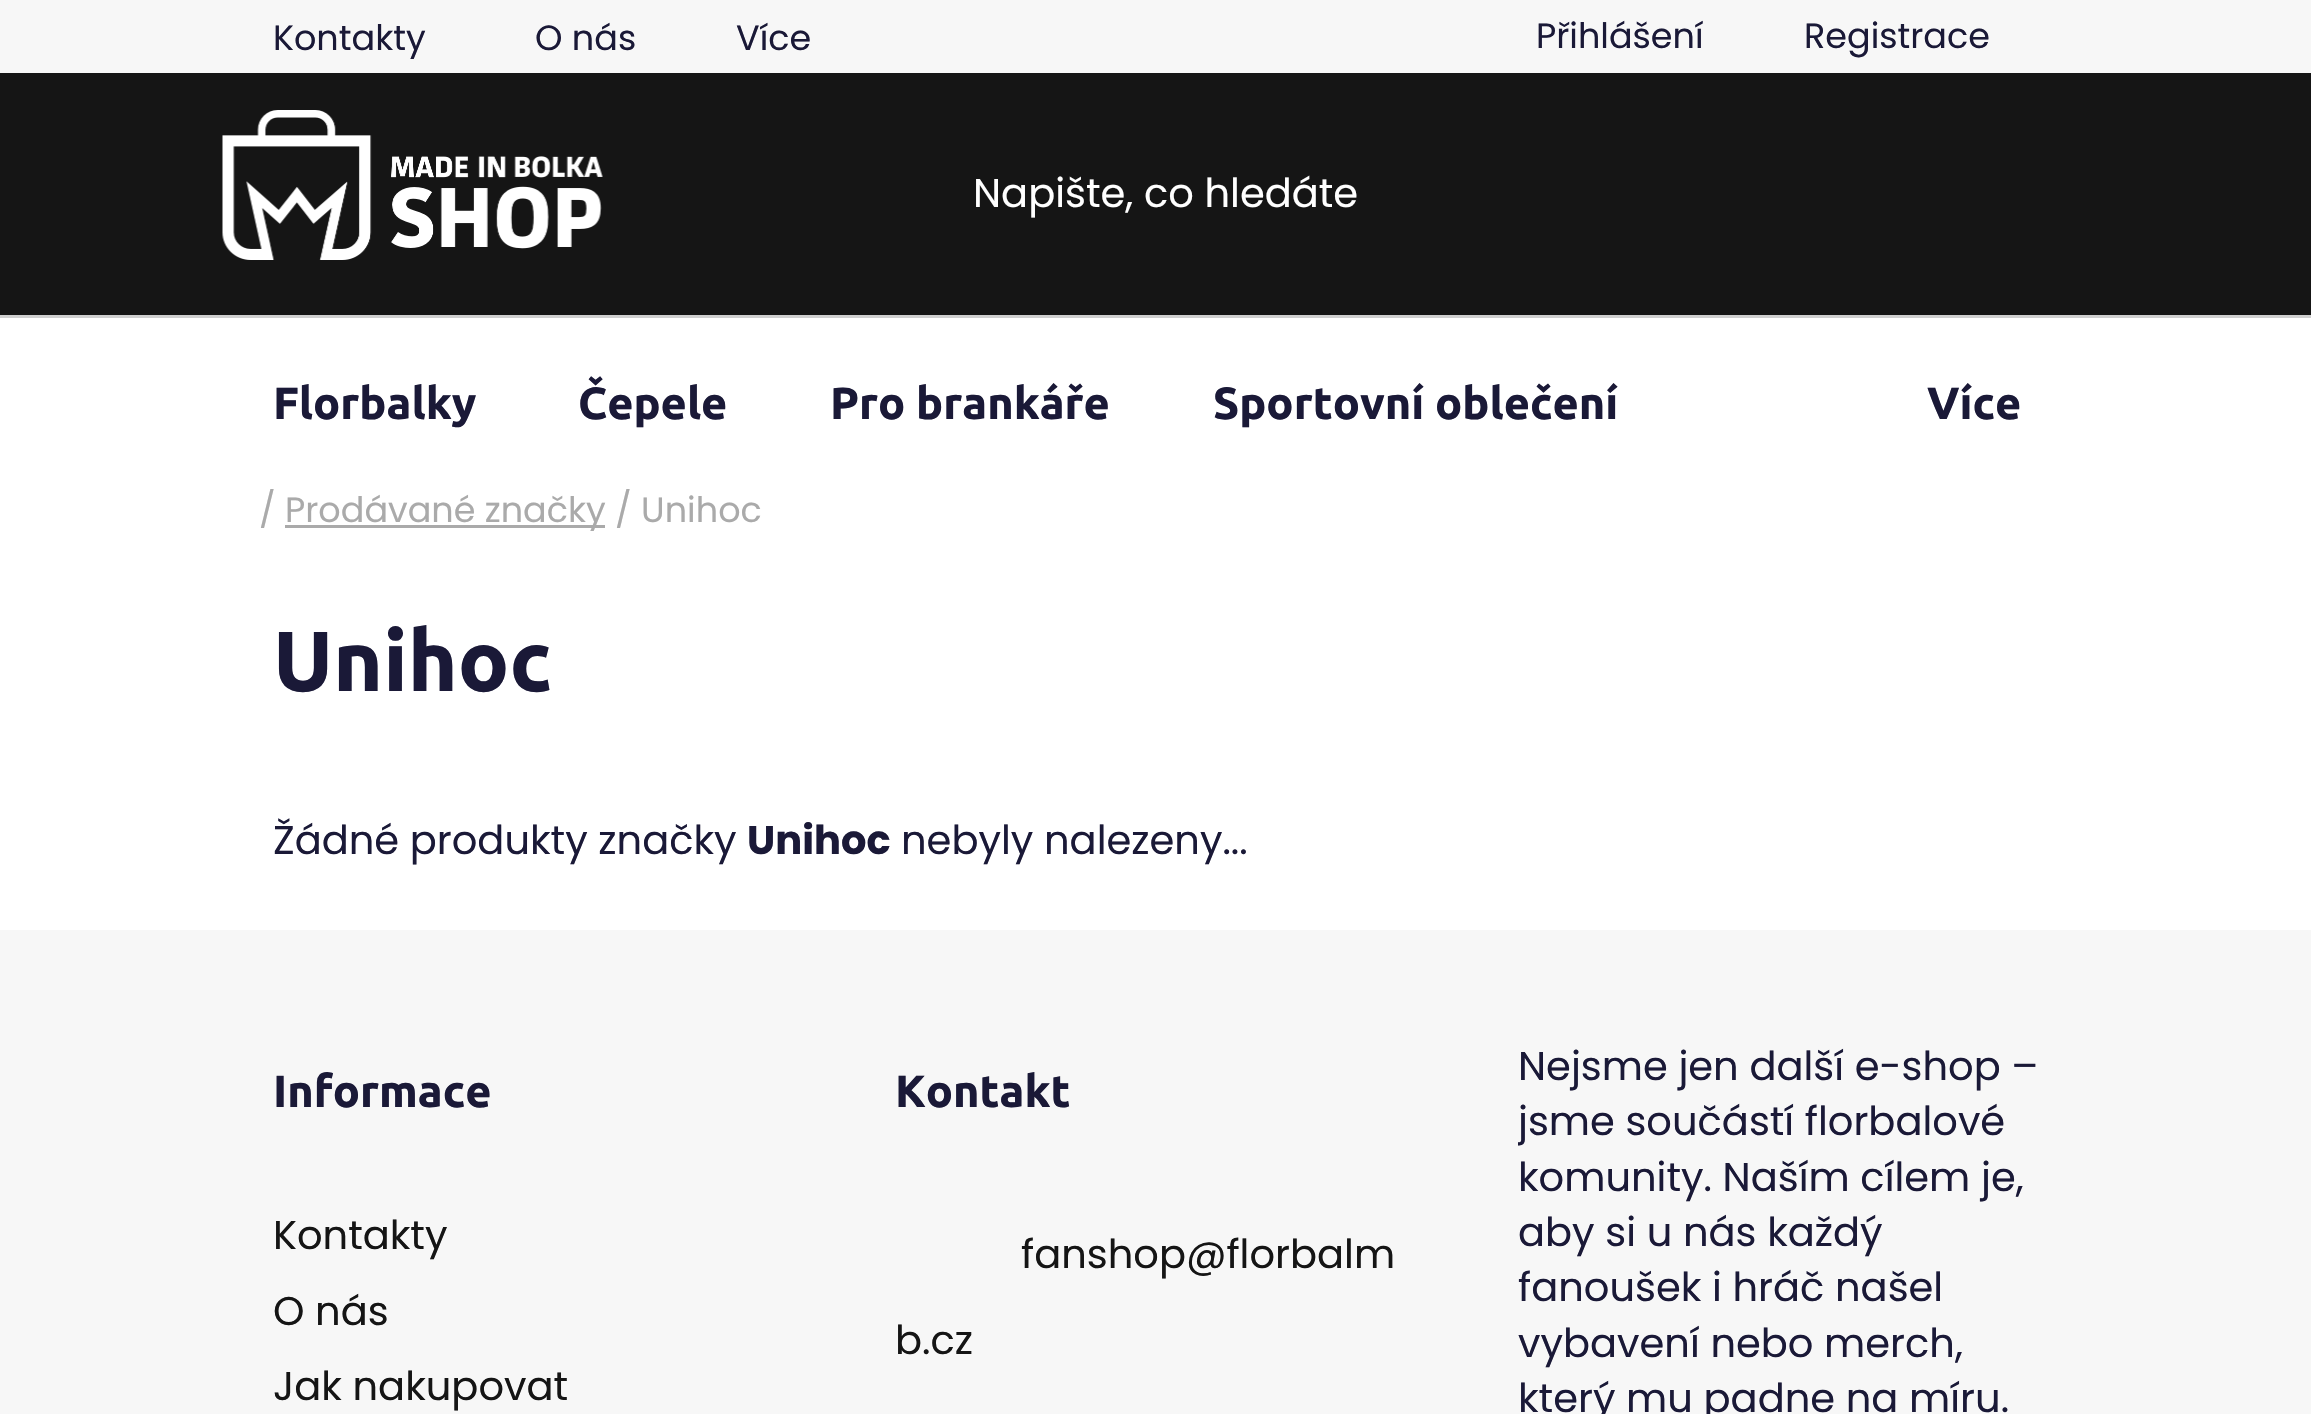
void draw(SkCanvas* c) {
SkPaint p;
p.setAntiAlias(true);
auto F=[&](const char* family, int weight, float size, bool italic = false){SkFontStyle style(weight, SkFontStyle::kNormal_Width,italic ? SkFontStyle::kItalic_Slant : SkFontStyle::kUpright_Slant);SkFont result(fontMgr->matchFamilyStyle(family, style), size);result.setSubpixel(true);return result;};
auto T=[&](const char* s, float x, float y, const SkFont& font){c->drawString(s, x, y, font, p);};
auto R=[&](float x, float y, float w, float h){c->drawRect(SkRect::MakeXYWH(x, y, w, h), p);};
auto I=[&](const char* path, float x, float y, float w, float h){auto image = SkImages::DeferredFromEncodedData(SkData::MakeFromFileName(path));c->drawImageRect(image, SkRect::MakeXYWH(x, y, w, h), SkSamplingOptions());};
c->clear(0xffffffff);
p.setColor(0xfff7f7f7);
R(0,0,2311,73);
auto f1 = F("Poppins",400,35);
p.setColor(0xff1a1937);
T("Kontakty",273,50,f1);
T("O nás",535,50,f1);
T("Více",736,50,f1);
T("Přihlášení",1536,48,f1);
T("Registrace",1804,48,f1);
p.setColor(0xff151515);
R(0,73,2311,242);
I("1.png",222,110,381,150);
auto f2 = F("Poppins",400,40);
p.setColor(0xffffffff);
T("Napište, co hledáte",973,207,f2);
p.setColor(0xffcfcfcf);
R(0,315,2311,3);
auto f3 = F("Ubuntu",700,45);
p.setColor(0xff1a1937);
T("Florbalky",273,419,f3);
T("Čepele",578,419,f3);
T("Pro brankáře",830,419,f3);
T("Sportovní oblečení",1213,419,f3);
T("Více",1927,419,f3);
p.setColor(0xffaaaaaa);
T("/",259,522,f1);
R(285,525,320,3);
T("Prodávané značky / Unihoc",285,522,f1);
auto f4 = F("Ubuntu",700,85);
p.setColor(0xff1a1937);
T("Unihoc",273,691,f4);
T("Žádné produkty značky",273,854,f2);
auto f5 = F("Poppins",700,40);
T("Unihoc",747,854,f5);
T("nebyly nalezeny...",901,854,f2);
p.setColor(0xfff7f7f7);
R(0,930,2311,484);
p.setColor(0xff1a1937);
T("Informace",273,1107,f3);
p.setColor(0xff151515);
T("Kontakty",273,1249,f2);
T("O nás",273,1325,f2);
T("Jak nakupovat",273,1400,f2);
p.setColor(0xff1a1937);
T("Kontakt",895,1107,f3);
p.setColor(0xff151515);
T("fanshop@florbalm",1021,1268,f2);
T("b.cz",895,1354,f2);
p.setColor(0xff1a1937);
T("Nejsme jen další e-shop –",1518,1080,f2);
c->save();
c->clipRect(SkRect::MakeXYWH(1518,1040,522,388));
T("jsme součástí florbalové",1518,1135,f2);
c->restore();
T("komunity. Naším cílem je,",1518,1191,f2);
T("aby si u nás každý",1518,1246,f2);
T("fanoušek i hráč našel",1518,1301,f2);
T("vybavení nebo merch,",1518,1357,f2);
T("který mu padne na míru.",1518,1412,f2);
}
